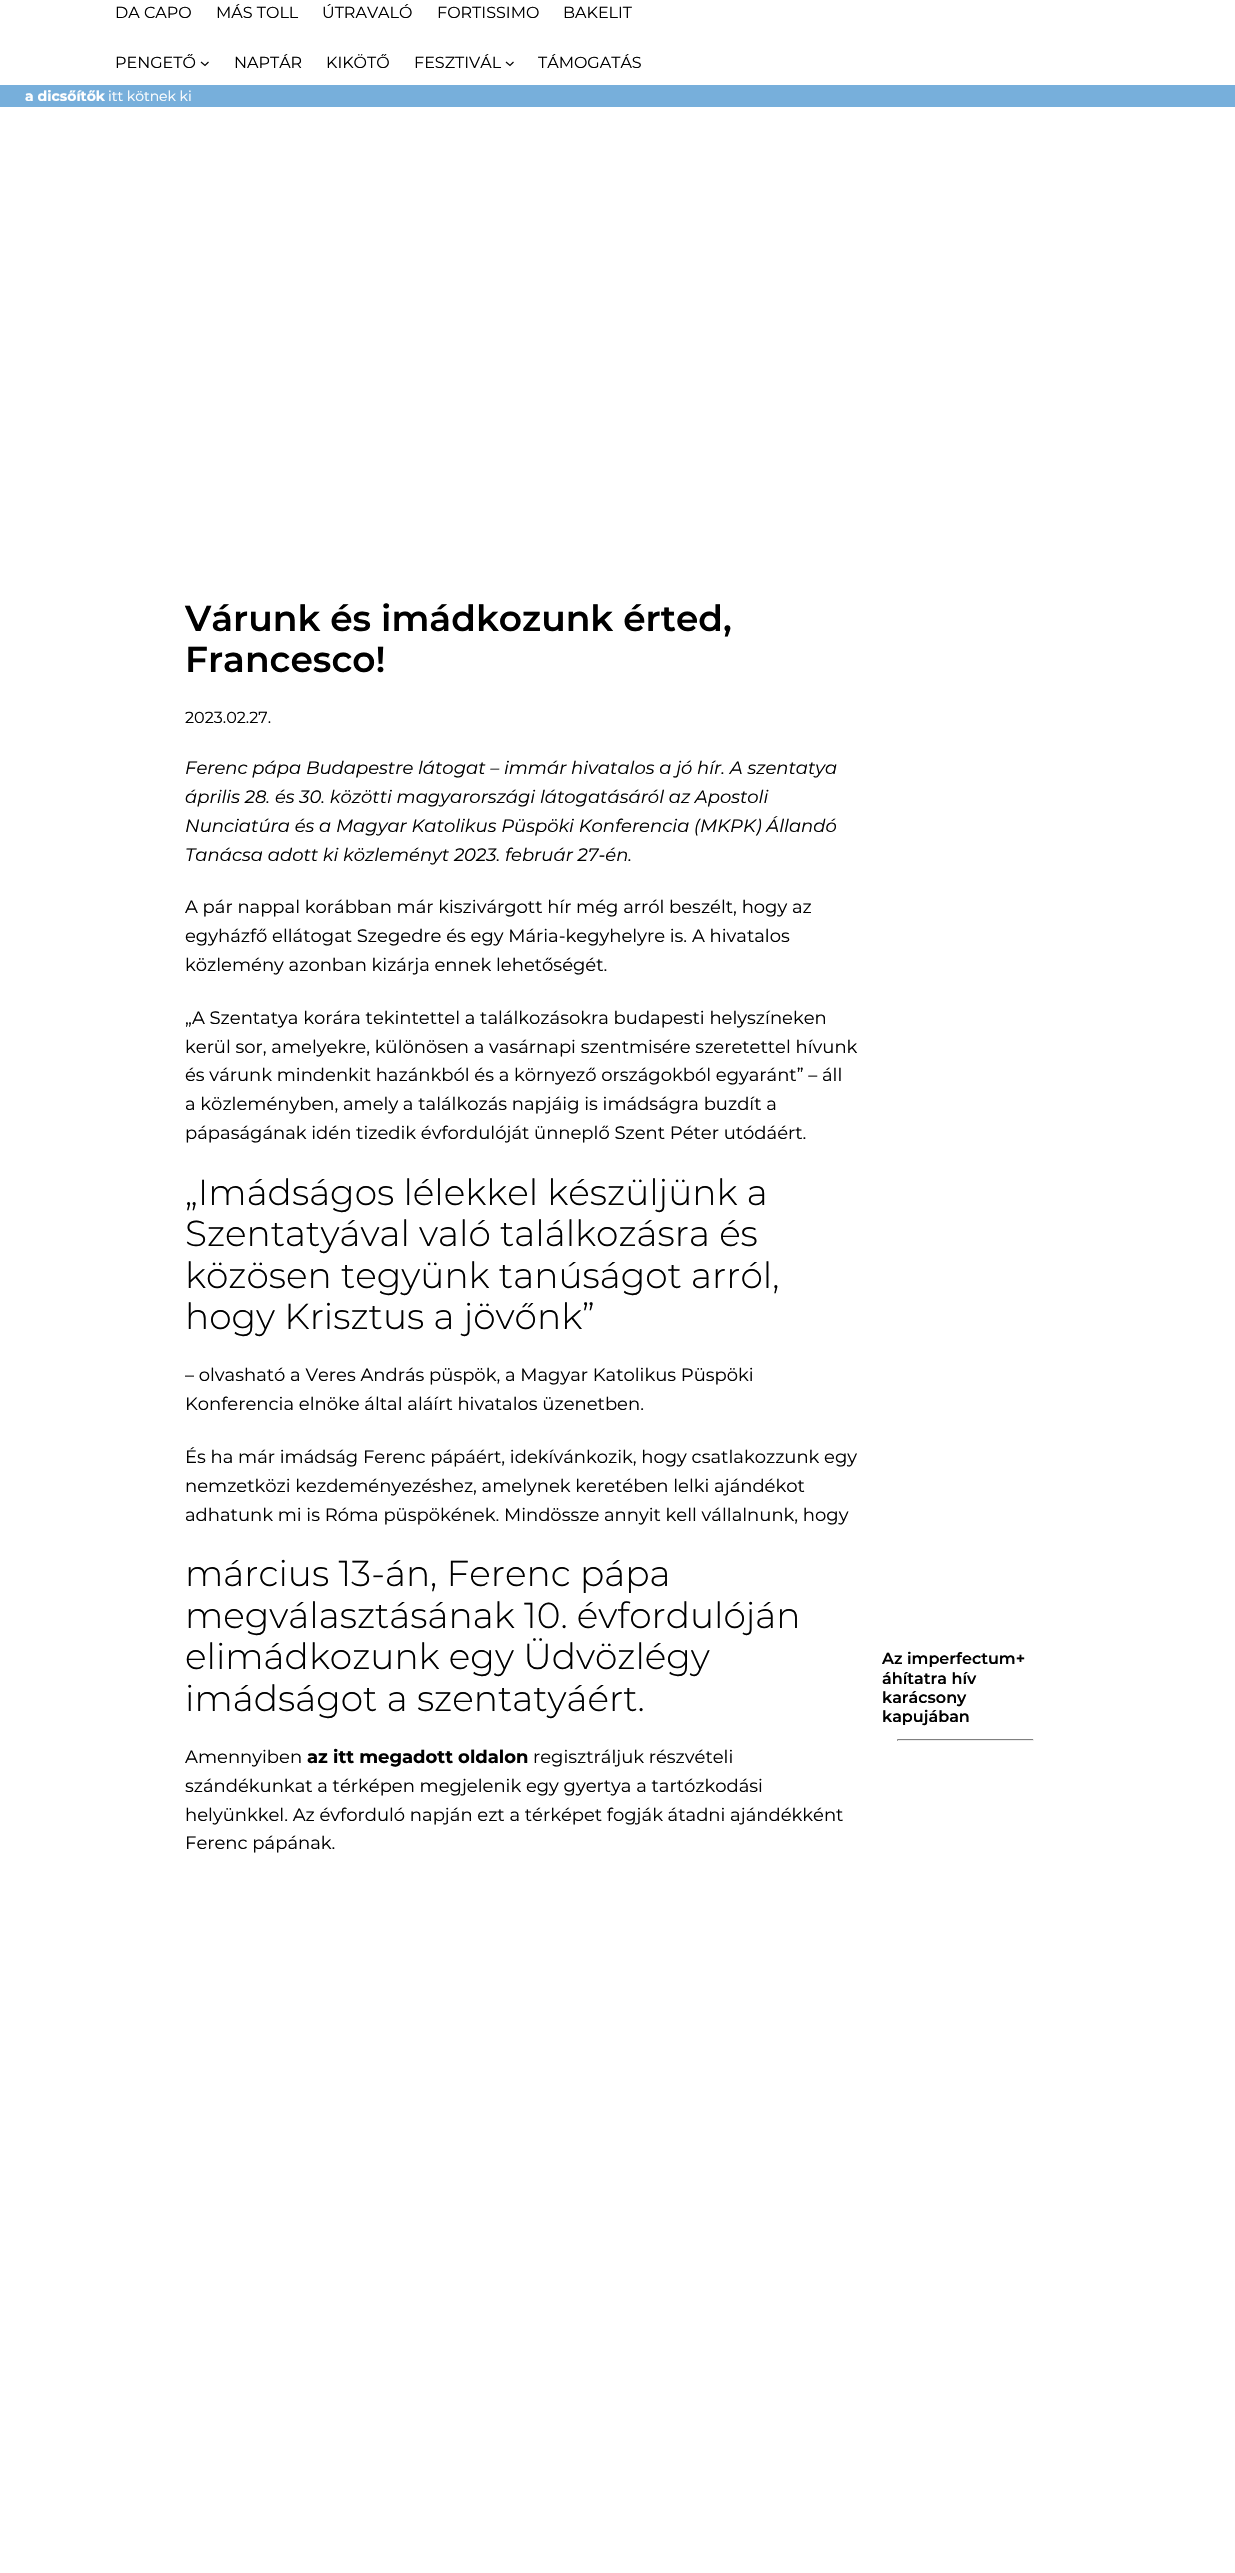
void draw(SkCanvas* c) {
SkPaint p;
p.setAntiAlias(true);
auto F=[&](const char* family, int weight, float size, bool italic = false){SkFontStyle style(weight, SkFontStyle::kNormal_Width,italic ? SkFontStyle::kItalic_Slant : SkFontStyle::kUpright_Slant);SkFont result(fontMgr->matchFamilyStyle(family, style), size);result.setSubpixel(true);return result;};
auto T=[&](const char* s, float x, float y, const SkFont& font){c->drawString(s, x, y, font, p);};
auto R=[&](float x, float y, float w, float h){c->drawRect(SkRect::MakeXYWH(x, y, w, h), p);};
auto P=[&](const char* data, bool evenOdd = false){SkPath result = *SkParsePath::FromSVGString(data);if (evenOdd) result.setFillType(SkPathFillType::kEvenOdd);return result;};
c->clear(0xffffffff);
auto f1 = F("Montserrat",400,16);
p.setColor(0xff000000);
T("DA CAPO",115,18,f1);
T("MÁS TOLL",216,18,f1);
T("ÚTRAVALÓ",322,18,f1);
T("FORTISSIMO",437,18,f1);
T("BAKELIT",563,18,f1);
T("PENGETŐ",115,68,f1);
p.setStroke(true);
p.setStrokeWidth(1.2);
c->drawPath(P("M201 62l4 3.5l3.5-3.5"),p);
p.setStroke(false);
T("NAPTÁR",234,68,f1);
T("KIKÖTŐ",326,68,f1);
T("FESZTIVÁL",414,68,f1);
p.setStroke(true);
c->drawPath(P("M506 62l4 3.5l3.5-3.5"),p);
p.setStroke(false);
T("TÁMOGATÁS",538,68,f1);
p.setColor(0xff77afdb);
R(0,85,1235,22);
auto f2 = F("Montserrat",700,14);
p.setColor(0xffffffff);
T("a dicsőítők",25,101,f2);
auto f3 = F("Montserrat",400,14);
T("itt kötnek ki",108,101,f3);
auto f4 = F("Montserrat",600,36);
p.setColor(0xff000000);
T("Várunk és imádkozunk érted,",185,631,f4);
T("Francesco!",185,672,f4);
T("2023.02.27.",185,723,f1);
auto f5 = F("Montserrat",400,18,true);
T("Ferenc pápa Budapestre látogat – immár hivatalos a jó hír. A szentatya",185,774,f5);
T("április 28. és 30. közötti magyarországi látogatásáról az Apostoli",185,803,f5);
T("Nunciatúra és a Magyar Katolikus Püspöki Konferencia (MKPK) Állandó",185,832,f5);
T("Tanácsa adott ki közleményt 2023. február 27-én.",185,861,f5);
auto f6 = F("Montserrat",400,18);
T("A pár nappal korábban már kiszivárgott hír még arról beszélt, hogy az",185,913,f6);
T("egyházfő ellátogat Szegedre és egy Mária-kegyhelyre is. A hivatalos",185,942,f6);
T("közlemény azonban kizárja ennek lehetőségét.",185,971,f6);
T("„A Szentatya korára tekintettel a találkozásokra budapesti helyszíneken",185,1024,f6);
T("kerül sor, amelyekre, különösen a vasárnapi szentmisére szeretettel hívunk",185,1053,f6);
T("és várunk mindenkit hazánkból és a környező országokból egyaránt” – áll",185,1081,f6);
T("a közleményben, amely a találkozás napjáig is imádságra buzdít a",185,1110,f6);
T("pápaságának idén tizedik évfordulóját ünneplő Szent Péter utódáért.",185,1139,f6);
auto f7 = F("Montserrat",300,36);
T("„Imádságos lélekkel készüljünk a",185,1205,f7);
T("Szentatyával való találkozásra és",185,1246,f7);
T("közösen tegyünk tanúságot arról,",185,1288,f7);
T("hogy Krisztus a jövőnk”",185,1329,f7);
T("– olvasható a Veres András püspök, a Magyar Katolikus Püspöki",185,1381,f6);
T("Konferencia elnöke által aláírt hivatalos üzenetben.",185,1410,f6);
T("És ha már imádság Ferenc pápáért, idekívánkozik, hogy csatlakozzunk egy",185,1463,f6);
T("nemzetközi kezdeményezéshez, amelynek keretében lelki ajándékot",185,1492,f6);
T("adhatunk mi is Róma püspökének. Mindössze annyit kell vállalnunk, hogy",185,1521,f6);
T("március 13-án, Ferenc pápa",185,1586,f7);
T("megválasztásának 10. évfordulóján",185,1628,f7);
T("elimádkozunk egy Üdvözlégy",185,1669,f7);
T("imádságot a szentatyáért.",185,1711,f7);
T("Amennyiben",185,1763,f6);
auto f8 = F("Montserrat",700,18);
T("az itt megadott oldalon",307,1763,f8);
T("regisztráljuk részvételi",533,1763,f6);
T("szándékunkat a térképen megjelenik egy gyertya a tartózkodási",185,1792,f6);
T("helyünkkel. Az évforduló napján ezt a térképet fogják átadni ajándékként",185,1821,f6);
T("Ferenc pápának.",185,1849,f6);
auto f9 = F("Montserrat",600,16);
T("Az imperfectum+",882,1664,f9);
T("áhítatra hív",882,1684,f9);
T("karácsony",882,1703,f9);
T("kapujában",882,1722,f9);
p.setColor(0xff808080);
R(897,1739,137,1);
p.setColor(0xffeeeeee);
R(1033,1739,1,2);
R(897,1740,137,1);
p.setColor(0xff9f9f9f);
R(897,1739,1,2);
}
